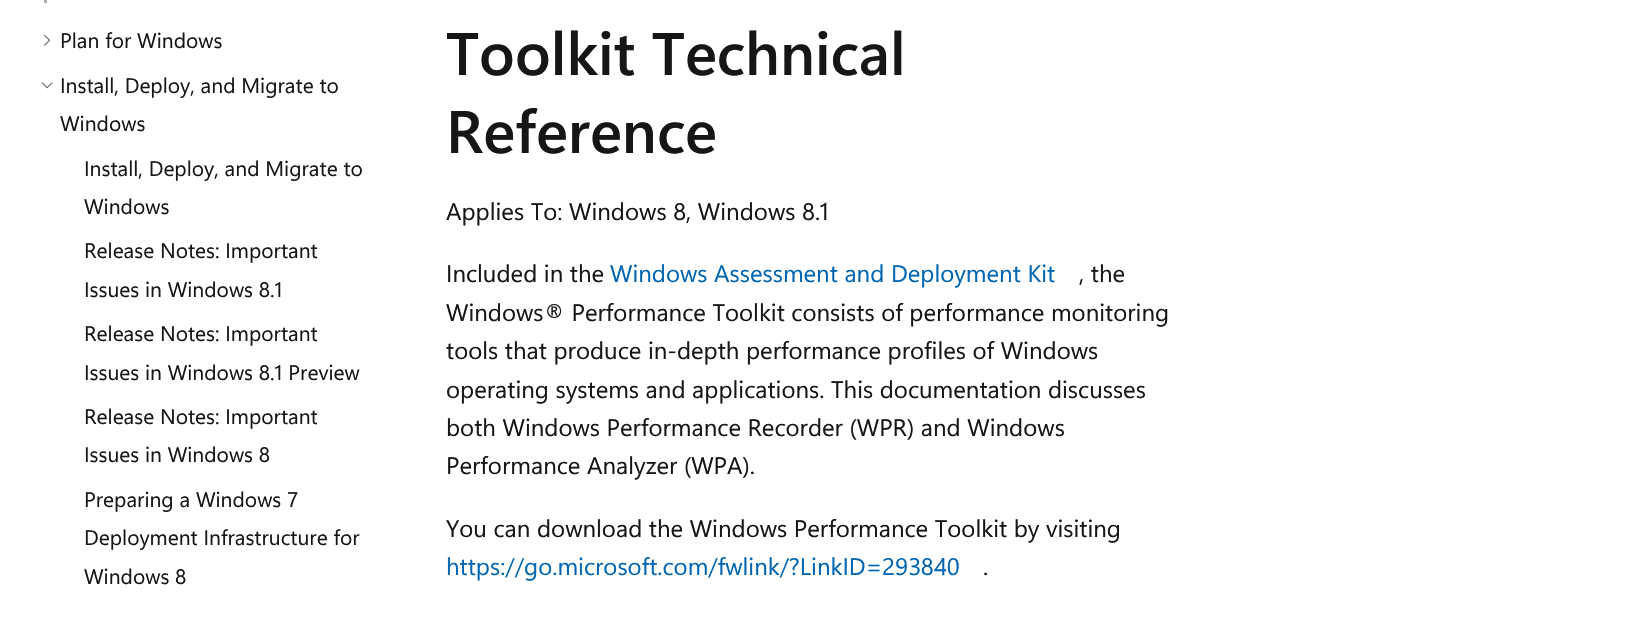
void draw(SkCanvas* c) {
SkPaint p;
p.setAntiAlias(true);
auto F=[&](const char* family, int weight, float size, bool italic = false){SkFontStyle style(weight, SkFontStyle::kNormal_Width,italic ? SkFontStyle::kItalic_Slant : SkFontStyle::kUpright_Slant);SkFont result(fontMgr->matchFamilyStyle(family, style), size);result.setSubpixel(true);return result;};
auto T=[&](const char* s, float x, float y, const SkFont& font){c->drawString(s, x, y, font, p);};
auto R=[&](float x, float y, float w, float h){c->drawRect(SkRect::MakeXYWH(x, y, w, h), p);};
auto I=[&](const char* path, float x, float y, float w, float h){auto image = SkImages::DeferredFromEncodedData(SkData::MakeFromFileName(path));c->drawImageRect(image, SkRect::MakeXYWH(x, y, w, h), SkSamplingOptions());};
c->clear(0xffffffff);
p.setColor(0xffababab);
R(44,0,3,3);
I("1.png",44,34,7,12);
auto f1 = F("Segoe UI",400,21);
p.setColor(0xff161616);
T("Plan for Windows",60,48,f1);
I("2.png",41,82,12,7);
T("Install, Deploy, and Migrate to",60,93,f1);
T("Windows",60,131,f1);
T("Install, Deploy, and Migrate to",84,176,f1);
T("Windows",84,214,f1);
T("Release Notes: Important",84,258,f1);
T("Issues in Windows 8.1",84,297,f1);
T("Release Notes: Important",84,341,f1);
T("Issues in Windows 8.1 Preview",84,380,f1);
T("Release Notes: Important",84,424,f1);
T("Issues in Windows 8",84,462,f1);
T("Preparing a Windows 7",84,507,f1);
T("Deployment Infrastructure for",84,545,f1);
T("Windows 8",84,584,f1);
auto f2 = F("Segoe UI",600,60);
T("Toolkit Technical",446,75,f2);
T("Reference",446,153,f2);
auto f3 = F("Segoe UI",400,24);
T("Applies To: Windows 8, Windows 8.1",446,220,f3);
T("Included in the",446,282,f3);
p.setColor(0xff0065b3);
T("Windows Assessment and Deployment Kit",610,282,f3);
p.setColor(0xff161616);
T(", the",1079,282,f3);
T("Windows® Performance Toolkit consists of performance monitoring",446,321,f3);
T("tools that produce in-depth performance profiles of Windows",446,359,f3);
T("operating systems and applications. This documentation discusses",446,398,f3);
T("both Windows Performance Recorder (WPR) and Windows",446,436,f3);
T("Performance Analyzer (WPA).",446,474,f3);
T("You can download the Windows Performance Toolkit by visiting",446,537,f3);
p.setColor(0xff0065b3);
T("https://go.microsoft.com/fwlink/?LinkID=293840",446,575,f3);
p.setColor(0xff161616);
T(".",983,575,f3);
}
